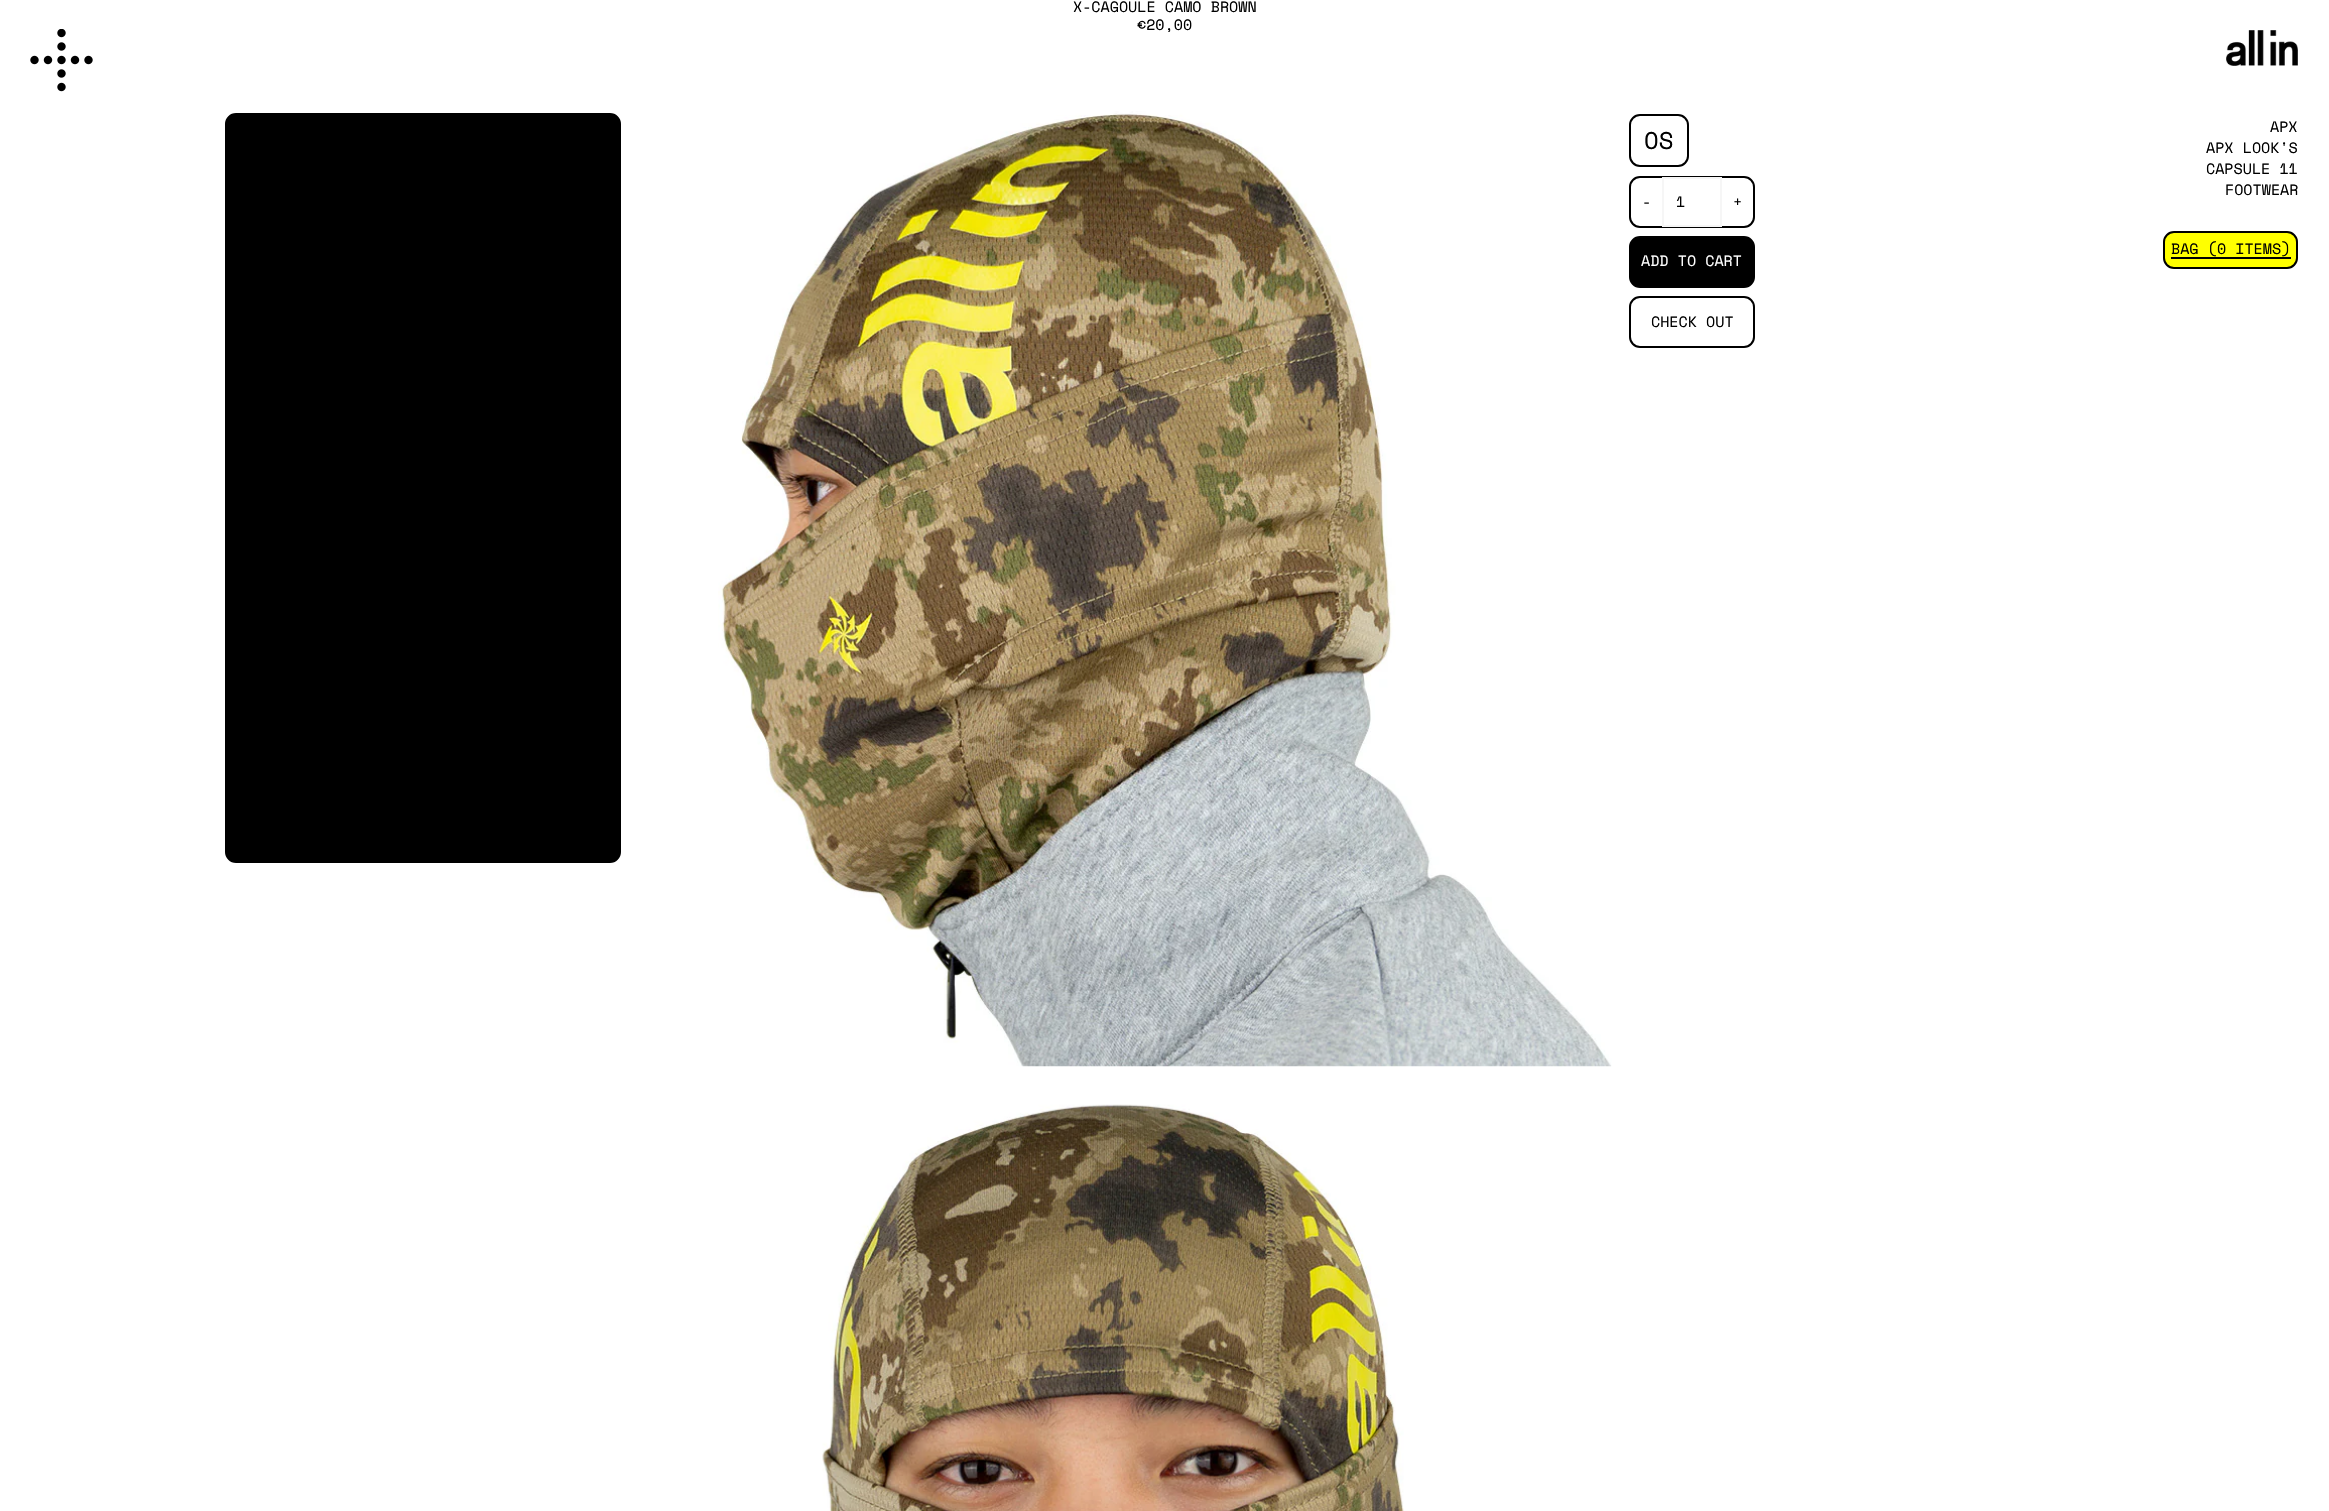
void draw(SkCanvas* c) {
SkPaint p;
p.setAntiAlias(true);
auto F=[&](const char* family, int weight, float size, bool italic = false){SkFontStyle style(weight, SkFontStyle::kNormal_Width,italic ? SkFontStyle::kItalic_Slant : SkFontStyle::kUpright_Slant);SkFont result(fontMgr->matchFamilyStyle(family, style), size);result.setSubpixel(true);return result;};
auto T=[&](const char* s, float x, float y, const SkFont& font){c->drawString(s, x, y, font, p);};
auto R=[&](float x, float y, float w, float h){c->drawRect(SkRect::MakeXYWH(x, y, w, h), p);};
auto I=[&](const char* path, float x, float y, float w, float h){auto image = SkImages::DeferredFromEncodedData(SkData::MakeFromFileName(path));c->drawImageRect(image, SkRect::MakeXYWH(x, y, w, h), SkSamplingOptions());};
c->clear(0xffffffff);
I("1.png",30,29,63,63);
auto f1 = F("Space Mono",400,15);
p.setColor(0xff000000);
T("X-CAGOULE CAMO BROWN",1073,12,f1);
T("€20,00",1137,30,f1);
c->drawRoundRect(SkRect::MakeXYWH(226.5,114.5,393,747),9.5,9.5,p);
p.setStroke(true);
p.setStrokeWidth(3);
c->drawRoundRect(SkRect::MakeXYWH(226.5,114.5,393,747),9.5,9.5,p);
I("2.png",718,111,894,956);
I("3.png",822,1104,582,407);
p.setStrokeWidth(2);
c->drawRoundRect(SkRect::MakeXYWH(1630,115,58,51),10,10,p);
auto f2 = F("Space Mono",400,24);
p.setStroke(false);
T("OS",1644,149,f2);
p.setStroke(true);
c->drawRoundRect(SkRect::MakeXYWH(1630,177,124,50),10,10,p);
p.setStroke(false);
T("-",1642,207,f1);
p.setStroke(true);
p.setColor(0xfff6f6f6);
c->drawRect(SkRect::MakeXYWH(1663,178,58,48),p);
p.setStroke(false);
p.setColor(0xff000000);
T("1",1676,207,f1);
T("+",1733,207,f1);
c->drawRoundRect(SkRect::MakeXYWH(1630,237,124,50),10,10,p);
p.setStroke(true);
c->drawRoundRect(SkRect::MakeXYWH(1630,237,124,50),10,10,p);
p.setStroke(false);
p.setColor(0xffffffff);
T("ADD TO CART",1641,266,f1);
p.setStroke(true);
p.setColor(0xff000000);
c->drawRoundRect(SkRect::MakeXYWH(1630,297,124,50),10,10,p);
p.setStroke(false);
T("CHECK OUT",1651,327,f1);
I("4.png",2226,30,72,36);
T("APX",2270,132,f1);
T("APX LOOK'S",2206,153,f1);
T("CAPSULE 11",2206,174,f1);
T("FOOTWEAR",2225,195,f1);
p.setColor(0xffffff00);
c->drawRoundRect(SkRect::MakeXYWH(2164,232,133,36),10,10,p);
p.setStroke(true);
p.setColor(0xff000000);
c->drawRoundRect(SkRect::MakeXYWH(2164,232,133,36),10,10,p);
p.setStroke(false);
T("BAG (0 ITEMS)",2171,254,f1);
R(2171,257,120,2);
}
